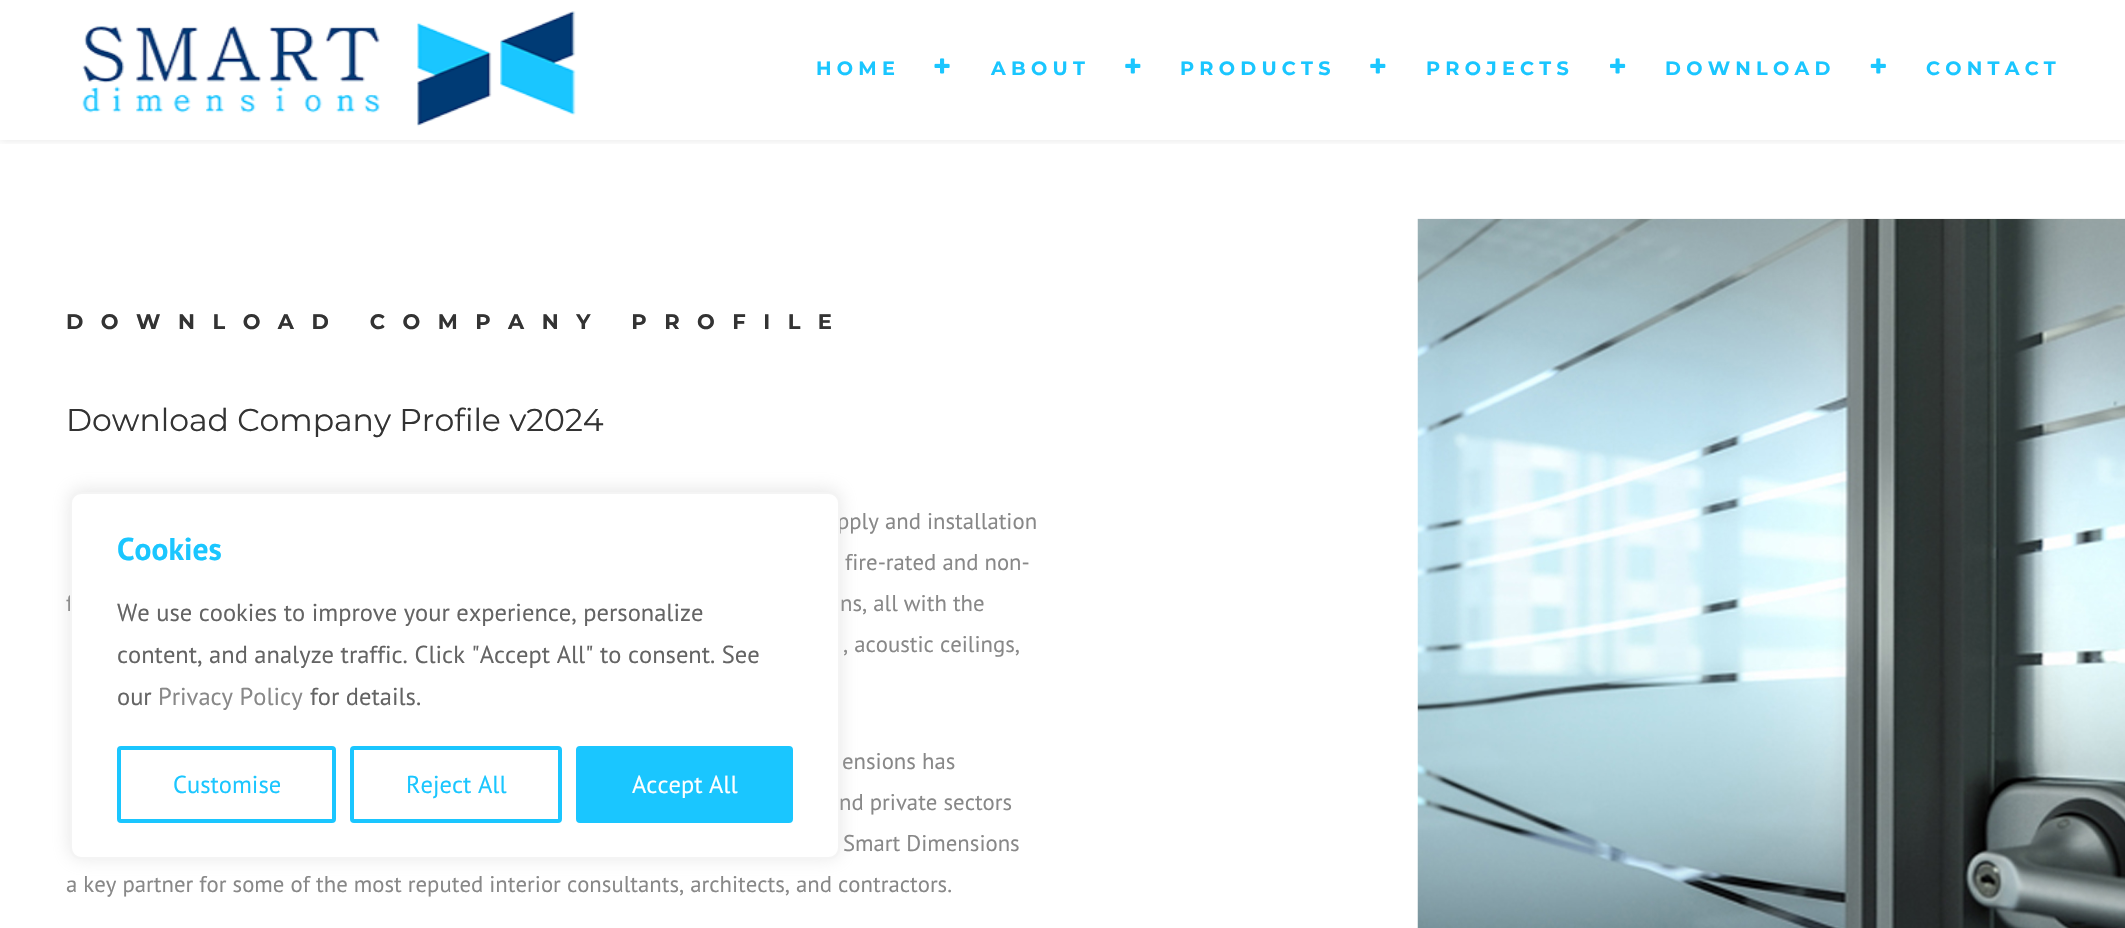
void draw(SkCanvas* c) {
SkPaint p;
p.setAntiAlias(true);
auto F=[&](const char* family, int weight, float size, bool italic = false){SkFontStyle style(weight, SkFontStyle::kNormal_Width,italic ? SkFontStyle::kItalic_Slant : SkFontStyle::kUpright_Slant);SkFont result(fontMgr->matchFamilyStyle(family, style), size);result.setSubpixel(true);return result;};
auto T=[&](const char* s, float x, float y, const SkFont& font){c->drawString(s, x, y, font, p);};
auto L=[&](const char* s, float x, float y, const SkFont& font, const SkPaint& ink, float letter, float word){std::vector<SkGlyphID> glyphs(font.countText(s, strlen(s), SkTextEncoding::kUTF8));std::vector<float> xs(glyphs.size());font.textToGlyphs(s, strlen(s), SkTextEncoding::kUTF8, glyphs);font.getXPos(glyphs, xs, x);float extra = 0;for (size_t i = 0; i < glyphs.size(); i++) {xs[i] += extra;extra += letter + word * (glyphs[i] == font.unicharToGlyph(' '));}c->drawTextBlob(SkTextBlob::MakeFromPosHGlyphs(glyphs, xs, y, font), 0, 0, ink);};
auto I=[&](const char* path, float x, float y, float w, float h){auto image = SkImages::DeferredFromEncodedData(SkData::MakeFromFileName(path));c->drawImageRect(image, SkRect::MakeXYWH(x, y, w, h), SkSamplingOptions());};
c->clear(0xffffffff);
c->save();
c->clipRect(SkRect::MakeXYWH(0,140,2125,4));
p.setColor(0x1a000000);
p.setMaskFilter(SkMaskFilter::MakeBlur(kNormal_SkBlurStyle, 4.5));
c->drawRect(SkRect::MakeXYWH(0,0,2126,140),p);
p.setMaskFilter(nullptr);
c->restore();
I("1.png",82,11,494,116);
auto f1 = F("Montserrat",700,19.25);
p.setColor(0xff1ac6ff);
L("HOME",816,75,f1,p,5.25,0);
I("2.png",934,58,16,16);
L("ABOUT",991,75,f1,p,5.25,0);
I("3.png",1125,58,16,16);
L("PRODUCTS",1180,75,f1,p,5.25,0);
I("3.png",1370,58,16,16);
L("PROJECTS",1426,75,f1,p,5.25,0);
I("4.png",1610,58,16,16);
L("DOWNLOAD",1665,75,f1,p,5.25,0);
I("5.png",1870,58,16,16);
L("CONTACT",1926,75,f1,p,5.25,0);
auto f2 = F("Montserrat",700,21);
p.setColor(0xff333333);
L("DOWNLOAD COMPANY PROFILE",66,329,f2,p,17.5,0);
auto f3 = F("Montserrat",400,31.5);
T("Download Company Profile v2024",66,431,f3);
auto f4 = F("PT Sans",400,22.75);
p.setColor(0xff888888);
T("pply and installation",837,529,f4);
T("fire-rated and non-",845,570,f4);
T("f",66,611,f4);
T("ns, all with the",840,611,f4);
T(", acoustic ceilings,",843,652,f4);
T("ensions has",842,769,f4);
T("nd private sectors",839,810,f4);
T("Smart Dimensions",843,851,f4);
T("a key partner for some of the most reputed interior consultants, architects, and contractors.",66,892,f4);
I("6.png",1417,218,708,710);
p.setColor(0x4dacabab);
p.setMaskFilter(SkMaskFilter::MakeBlur(kNormal_SkBlurStyle, 9));
c->drawRoundRect(SkRect::MakeXYWH(70,490,770,368),11,11,p);
p.setMaskFilter(nullptr);
p.setColor(0xffffffff);
c->drawRoundRect(SkRect::MakeXYWH(71,493,768,365),10,10,p);
p.setStroke(true);
p.setStrokeWidth(2);
p.setColor(0xfff4f4f4);
c->drawRoundRect(SkRect::MakeXYWH(71,493,768,365),10,10,p);
auto f5 = F("PT Sans",700,31.5);
p.setStroke(false);
p.setColor(0xff1ac6ff);
T("Cookies",117,560,f5);
auto f6 = F("PT Sans",400,24.5);
p.setColor(0xff646464);
T("We use cookies to improve your experience, personalize",117,621,f6);
T("content, and analyze traffic. Click \"Accept All\" to consent. See",117,663,f6);
T("our",117,705,f6);
p.setColor(0xff888888);
T("Privacy Policy",158,705,f6);
p.setColor(0xff646464);
T("for details.",310,705,f6);
p.setStroke(true);
p.setStrokeWidth(4);
p.setColor(0xff1ac6ff);
c->drawRoundRect(SkRect::MakeXYWH(119,748,215,73),2,2,p);
p.setStroke(false);
T("Customise",173,793,f6);
p.setStroke(true);
c->drawRoundRect(SkRect::MakeXYWH(352,748,208,73),2,2,p);
p.setStroke(false);
T("Reject All",406,793,f6);
c->drawRoundRect(SkRect::MakeXYWH(578,748,213,73),2,2,p);
p.setStroke(true);
c->drawRoundRect(SkRect::MakeXYWH(578,748,213,73),2,2,p);
p.setStroke(false);
p.setColor(0xffffffff);
T("Accept All",632,793,f6);
}
